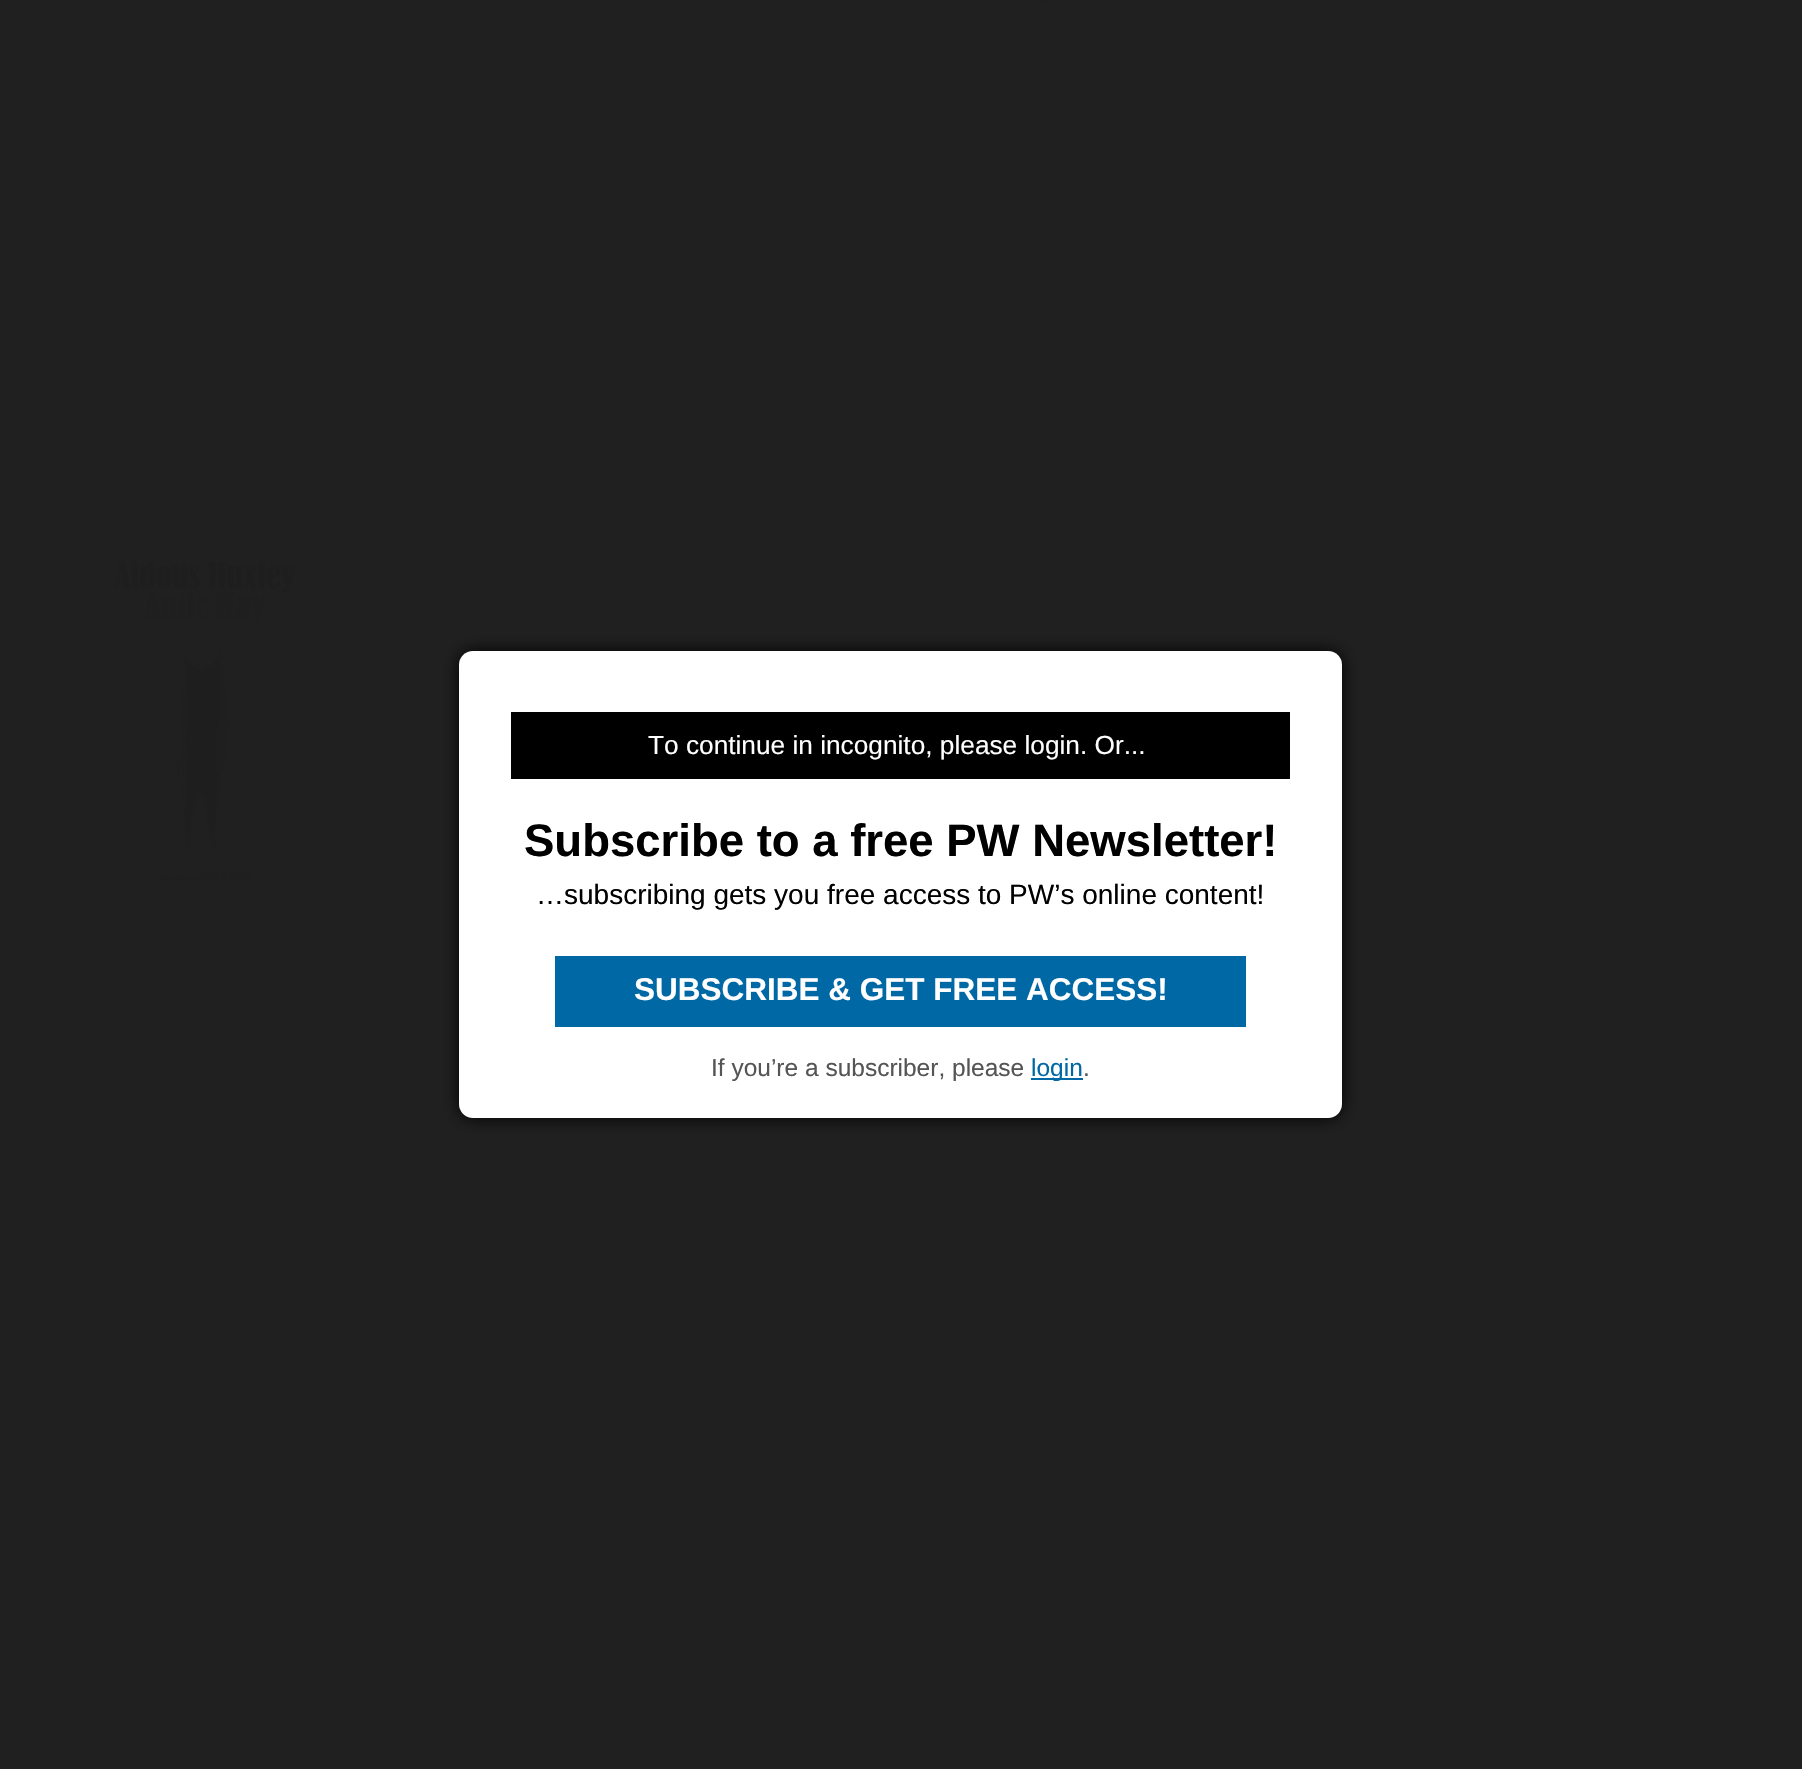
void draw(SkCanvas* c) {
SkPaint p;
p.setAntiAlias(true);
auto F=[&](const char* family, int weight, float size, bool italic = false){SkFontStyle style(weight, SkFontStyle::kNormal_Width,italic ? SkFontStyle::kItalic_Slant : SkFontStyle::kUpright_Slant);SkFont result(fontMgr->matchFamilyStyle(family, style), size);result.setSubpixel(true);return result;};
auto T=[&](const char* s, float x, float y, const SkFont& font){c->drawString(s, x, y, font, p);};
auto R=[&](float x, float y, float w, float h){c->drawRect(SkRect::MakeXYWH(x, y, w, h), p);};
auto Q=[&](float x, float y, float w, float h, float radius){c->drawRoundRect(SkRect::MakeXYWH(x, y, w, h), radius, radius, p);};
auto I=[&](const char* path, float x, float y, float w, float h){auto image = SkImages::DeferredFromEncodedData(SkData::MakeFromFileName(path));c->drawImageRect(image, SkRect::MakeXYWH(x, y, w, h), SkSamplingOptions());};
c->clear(0xff202020);
I("1.png",1040,0,10,4);
I("2.png",91,544,228,347);
I("3.png",1769,1610,25,25);
p.setColor(0xff000000);
p.setMaskFilter(SkMaskFilter::MakeBlur(kNormal_SkBlurStyle, 9));
c->drawRoundRect(SkRect::MakeXYWH(459,651,883,467),14,14,p);
p.setMaskFilter(nullptr);
p.setColor(0xffffffff);
Q(459,651,883,467,14);
p.setColor(0xff000000);
R(511,712,779,67);
auto f1 = F("Liberation Sans",400,26.25);
p.setColor(0xffffffff);
T("To continue in incognito, please login. Or...",648,754,f1);
auto f2 = F("Liberation Sans",700,45.5);
p.setColor(0xff000000);
T("Subscribe to a free PW Newsletter!",524,856,f2);
auto f3 = F("Liberation Sans",400,28);
T("…subscribing gets you free access to PW’s online content!",536,904,f3);
p.setColor(0xff0068a5);
R(555,956,691,71);
auto f4 = F("Liberation Sans",700,31.5);
p.setColor(0xffffffff);
T("SUBSCRIBE & GET FREE ACCESS!",634,1000,f4);
auto f5 = F("Liberation Sans",400,24.5);
p.setColor(0xff555555);
T("If you’re a subscriber, please",711,1076,f5);
p.setColor(0xff0068a5);
R(1031,1078,52,2);
T("login",1031,1076,f5);
p.setColor(0xff555555);
T(".",1083,1076,f5);
}
